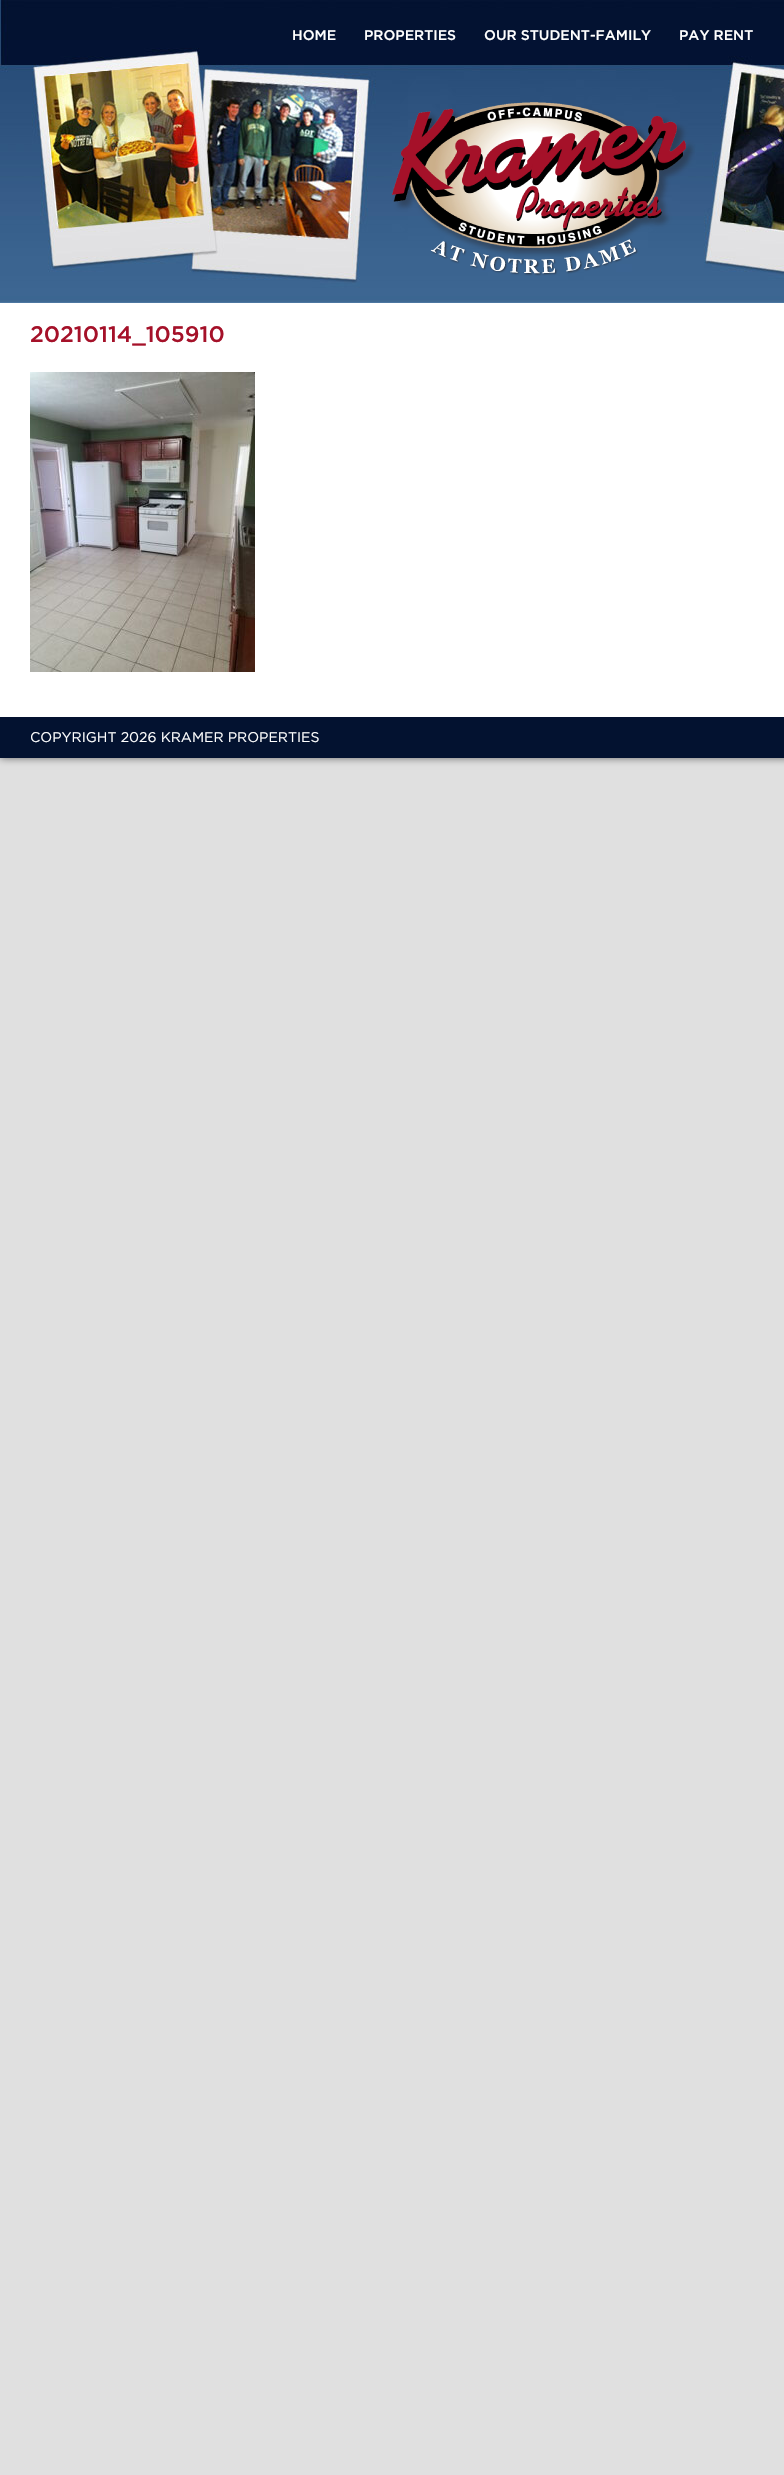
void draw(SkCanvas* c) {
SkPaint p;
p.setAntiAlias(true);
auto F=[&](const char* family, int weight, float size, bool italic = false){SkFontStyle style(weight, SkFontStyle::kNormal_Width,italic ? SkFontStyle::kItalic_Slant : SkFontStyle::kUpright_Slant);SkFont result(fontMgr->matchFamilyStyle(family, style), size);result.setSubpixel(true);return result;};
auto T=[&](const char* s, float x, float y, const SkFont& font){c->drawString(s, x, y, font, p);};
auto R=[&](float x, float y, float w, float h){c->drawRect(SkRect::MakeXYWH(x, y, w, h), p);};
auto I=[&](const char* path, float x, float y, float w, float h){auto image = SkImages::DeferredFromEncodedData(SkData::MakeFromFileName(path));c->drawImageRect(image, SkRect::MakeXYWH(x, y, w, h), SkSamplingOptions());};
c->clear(0xffe0e0e0);
p.setColor(0xff666666);
p.setMaskFilter(SkMaskFilter::MakeBlur(kNormal_SkBlurStyle, 4));
c->drawRect(SkRect::MakeXYWH(0,0,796,758),p);
p.setMaskFilter(nullptr);
p.setColor(0xffffffff);
R(0,303,784,414);
I("1.png",0,0,784,303);
auto f1 = F("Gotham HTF",500,14);
T("HOME",292,40,f1);
T("PROPERTIES",364,40,f1);
T("OUR STUDENT-FAMILY",484,40,f1);
T("PAY RENT",679,40,f1);
I("2.png",392,102,303,174);
auto f2 = F("Gotham HTF",500,22.5);
p.setColor(0xffa51129);
T("20210114_105910",30,342,f2);
I("3.png",30,372,225,300);
p.setColor(0xff031230);
R(0,717,784,41);
auto f3 = F("Gotham HTF",400,14);
p.setColor(0xffffffff);
T("COPYRIGHT 2026 KRAMER PROPERTIES",30,742,f3);
}
